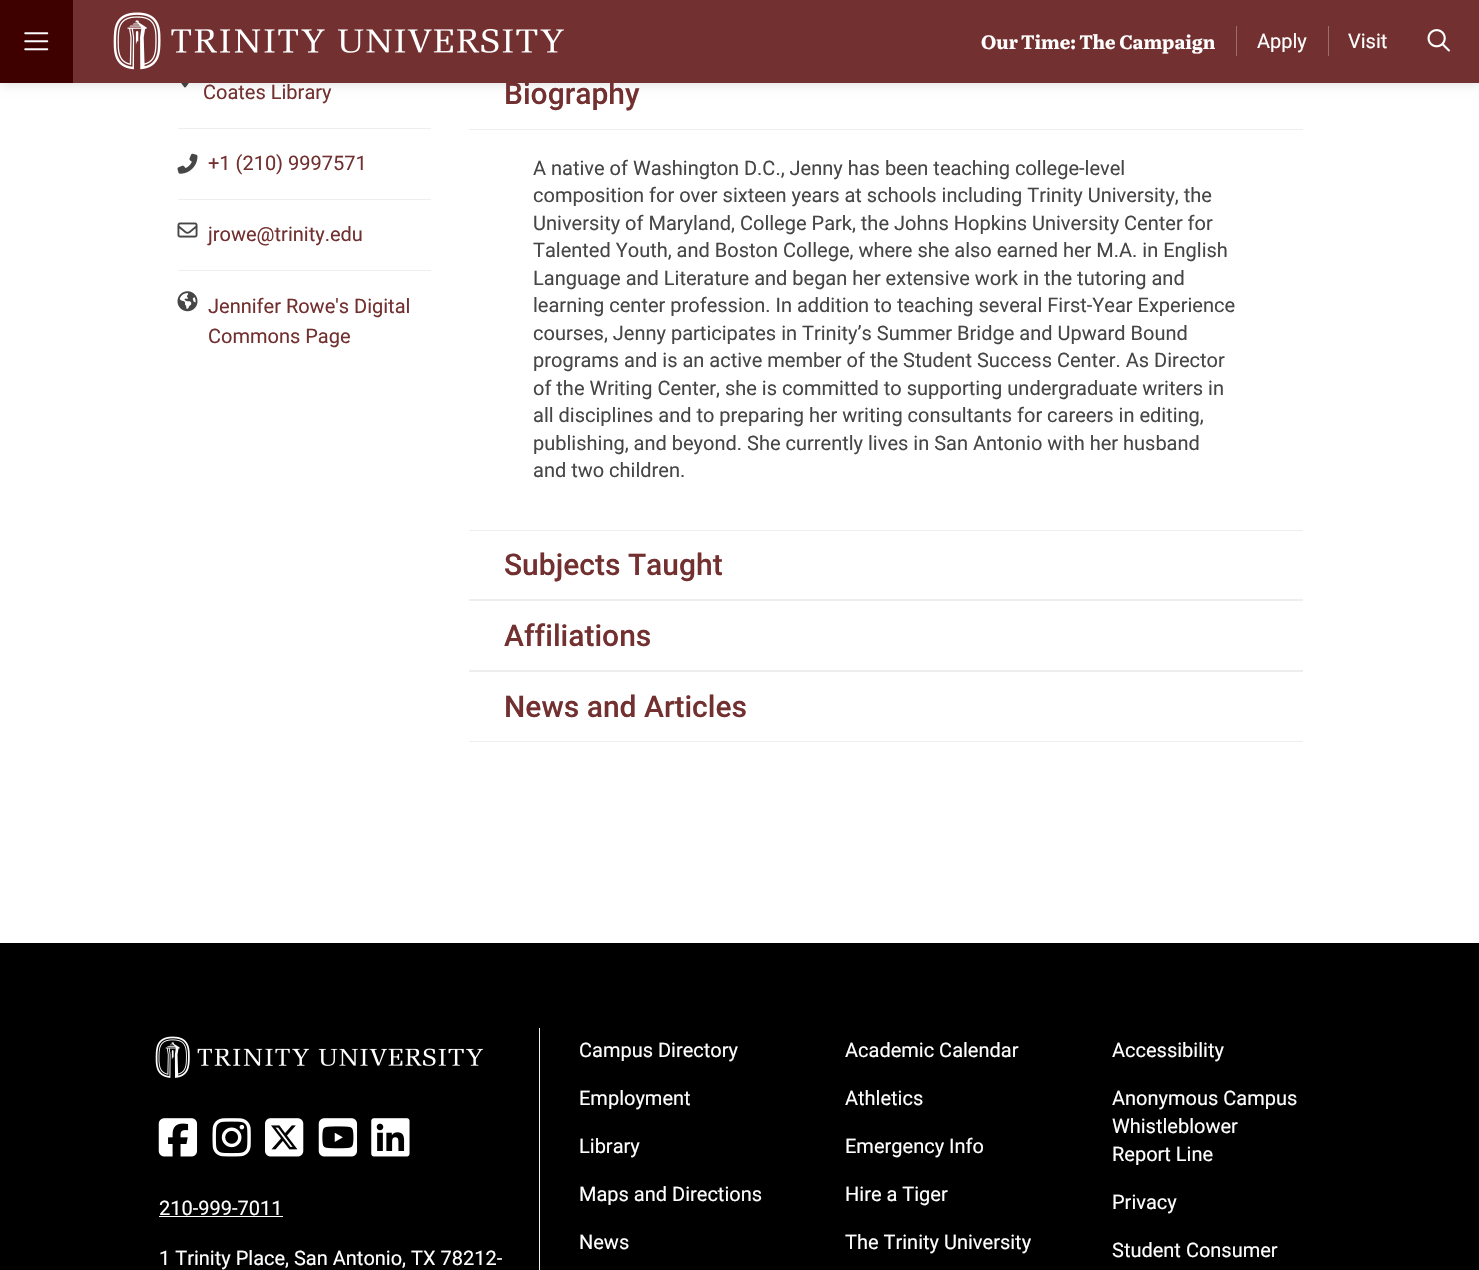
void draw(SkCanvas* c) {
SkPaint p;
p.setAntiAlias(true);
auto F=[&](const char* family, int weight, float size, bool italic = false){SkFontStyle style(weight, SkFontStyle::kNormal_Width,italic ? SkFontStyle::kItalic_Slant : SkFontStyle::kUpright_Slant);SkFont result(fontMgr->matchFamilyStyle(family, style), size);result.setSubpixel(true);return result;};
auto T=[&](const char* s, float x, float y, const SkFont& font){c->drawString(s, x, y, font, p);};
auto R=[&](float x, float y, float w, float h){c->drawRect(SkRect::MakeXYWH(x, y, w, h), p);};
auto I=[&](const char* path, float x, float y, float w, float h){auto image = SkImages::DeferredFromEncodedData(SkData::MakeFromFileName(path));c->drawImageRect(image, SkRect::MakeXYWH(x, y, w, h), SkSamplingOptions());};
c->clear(0xffffffff);
I("4.png",181,83,8,5);
p.setColor(0x26000000);
p.setMaskFilter(SkMaskFilter::MakeBlur(kNormal_SkBlurStyle, 5.5));
c->drawRect(SkRect::MakeXYWH(0,0,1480,83),p);
p.setMaskFilter(nullptr);
p.setColor(0xff723130);
R(73,0,1406,83);
p.setColor(0xff3f0000);
R(0,0,73,83);
I("1.png",24,32,25,19);
I("2.png",113,12,451,58);
p.setColor(0xff9c6f6e);
R(1236,26,1,30);
auto f1 = F("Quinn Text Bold",700,20);
p.setColor(0xffffffff);
T("Our Time: The Campaign",981,49,f1);
p.setColor(0xff9c6f6e);
R(1328,26,1,30);
auto f2 = F("Roboto",400,20);
p.setColor(0xffffffff);
T("Apply",1257,48,f2);
T("Visit",1348,48,f2);
I("3.png",1427,29,23,23);
p.setColor(0xff723130);
T("Coates Library",203,99,f2);
p.setColor(0xffeeeeee);
R(178,128,253,1);
I("5.png",177,153,21,21);
p.setColor(0xff723130);
T("+1 (210) 9997571",208,170,f2);
p.setColor(0xffeeeeee);
R(178,199,253,1);
I("6.png",177,222,21,16);
p.setColor(0xff723130);
T("jrowe@trinity.edu",208,241,f2);
p.setColor(0xffeeeeee);
R(178,270,253,1);
I("7.png",177,291,21,21);
p.setColor(0xff723130);
T("Jennifer Rowe's Digital",208,313,f2);
T("Commons Page",208,343,f2);
p.setColor(0xffeeeeee);
R(469,129,834,1);
auto f3 = F("Roboto",500,30);
p.setColor(0xff723130);
T("Biography",504,104,f3);
p.setColor(0xff464646);
T("A native of Washington D.C., Jenny has been teaching college-level",533,175,f2);
T("composition for over sixteen years at schools including Trinity University, the",533,202,f2);
T("University of Maryland, College Park, the Johns Hopkins University Center for",533,230,f2);
T("Talented Youth, and Boston College, where she also earned her M.A. in English",533,257,f2);
T("Language and Literature and began her extensive work in the tutoring and",533,285,f2);
T("learning center profession. In addition to teaching several First-Year Experience",533,312,f2);
T("courses, Jenny participates in Trinity’s Summer Bridge and Upward Bound",533,340,f2);
T("programs and is an active member of the Student Success Center. As Director",533,367,f2);
T("of the Writing Center, she is committed to supporting undergraduate writers in",533,395,f2);
T("all disciplines and to preparing her writing consultants for careers in editing,",533,422,f2);
T("publishing, and beyond. She currently lives in San Antonio with her husband",533,450,f2);
T("and two children.",533,477,f2);
p.setColor(0xffeeeeee);
R(469,530,834,1);
R(469,599,834,2);
p.setColor(0xff723130);
T("Subjects Taught",504,575,f3);
p.setColor(0xffeeeeee);
R(469,670,834,2);
p.setColor(0xff723130);
T("Affiliations",504,646,f3);
p.setColor(0xffeeeeee);
R(469,741,834,1);
p.setColor(0xff723130);
T("News and Articles",504,717,f3);
p.setColor(0xff000000);
R(0,943,1479,327);
p.setColor(0xffeeeeee);
R(539,1028,1,242);
I("8.png",155,1036,329,42);
I("9.png",158,1118,40,39);
I("10.png",212,1118,39,39);
I("11.png",265,1118,39,39);
I("12.png",318,1118,40,39);
I("13.png",371,1118,39,39);
p.setColor(0xffffffff);
T("210-999-7011",159,1215,f2);
R(159,1216,124,1);
T("1 Trinity Place, San Antonio, TX 78212-",159,1265,f2);
T("Campus Directory",579,1057,f2);
T("Employment",579,1105,f2);
T("Library",579,1153,f2);
T("Maps and Directions",579,1201,f2);
T("News",579,1249,f2);
T("Academic Calendar",845,1057,f2);
T("Athletics",845,1105,f2);
T("Emergency Info",845,1153,f2);
T("Hire a Tiger",845,1201,f2);
T("The Trinity University",845,1249,f2);
T("Accessibility",1112,1057,f2);
T("Anonymous Campus",1112,1105,f2);
T("Whistleblower",1112,1133,f2);
T("Report Line",1112,1161,f2);
T("Privacy",1112,1209,f2);
T("Student Consumer",1112,1257,f2);
}
